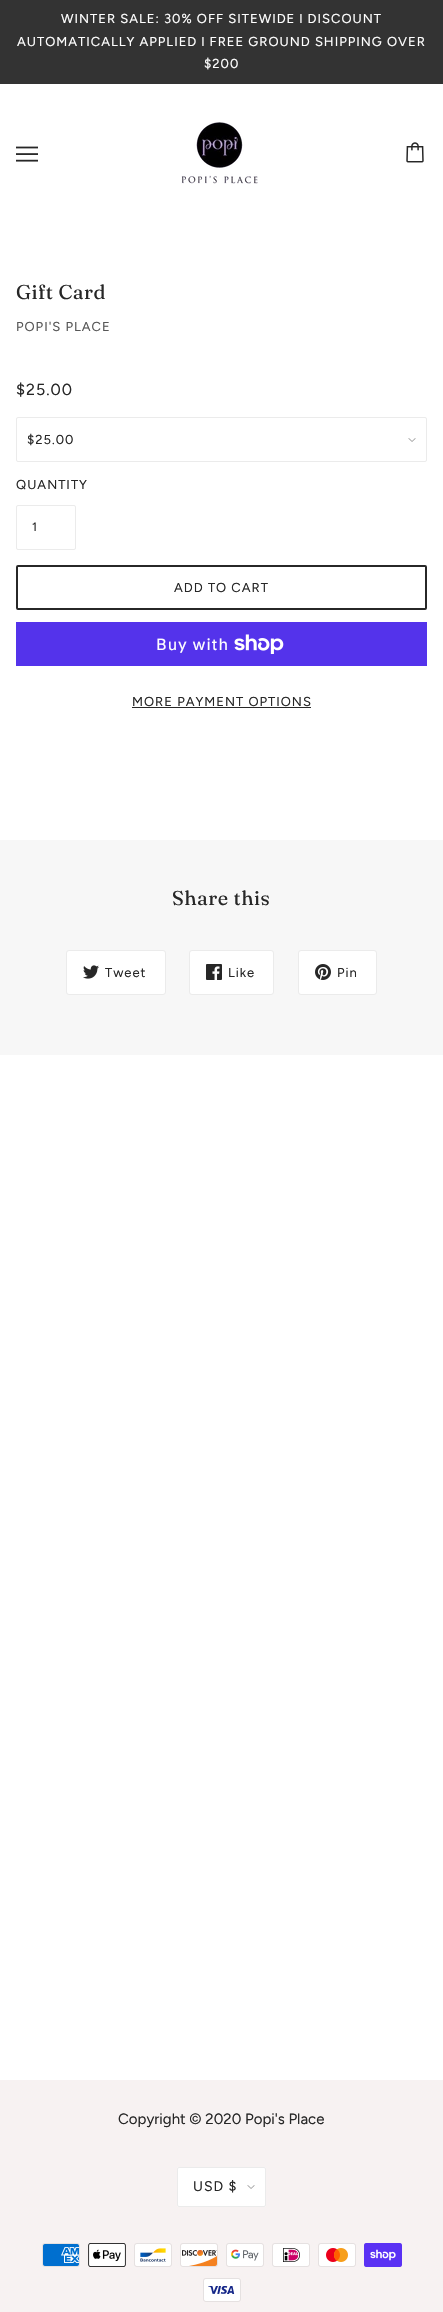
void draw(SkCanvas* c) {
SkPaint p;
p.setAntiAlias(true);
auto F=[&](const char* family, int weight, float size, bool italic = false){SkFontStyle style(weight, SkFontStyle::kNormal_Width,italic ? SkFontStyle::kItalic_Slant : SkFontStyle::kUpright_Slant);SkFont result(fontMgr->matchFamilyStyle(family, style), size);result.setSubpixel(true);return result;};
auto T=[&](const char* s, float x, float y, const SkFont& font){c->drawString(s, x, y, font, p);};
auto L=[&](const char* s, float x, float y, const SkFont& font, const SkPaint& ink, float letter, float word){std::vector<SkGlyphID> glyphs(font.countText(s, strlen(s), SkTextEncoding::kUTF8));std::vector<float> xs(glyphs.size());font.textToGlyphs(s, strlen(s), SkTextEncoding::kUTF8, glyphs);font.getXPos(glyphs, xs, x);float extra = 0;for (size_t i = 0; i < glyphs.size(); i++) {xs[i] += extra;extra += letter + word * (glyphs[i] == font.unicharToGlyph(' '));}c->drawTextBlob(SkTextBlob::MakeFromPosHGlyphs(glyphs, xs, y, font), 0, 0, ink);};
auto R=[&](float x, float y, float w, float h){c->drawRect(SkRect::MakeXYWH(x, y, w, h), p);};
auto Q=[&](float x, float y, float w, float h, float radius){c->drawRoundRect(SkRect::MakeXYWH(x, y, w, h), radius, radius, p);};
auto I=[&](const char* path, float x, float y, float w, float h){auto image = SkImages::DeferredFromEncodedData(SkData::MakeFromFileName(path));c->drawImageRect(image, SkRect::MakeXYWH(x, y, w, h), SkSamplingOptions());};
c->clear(0xffffffff);
p.setColor(0xff333333);
R(0,0,443,84);
auto f1 = F("Figtree",400,13);
p.setColor(0xffffffff);
L("WINTER SALE: 30% OFF SITEWIDE l DISCOUNT",61,23,f1,p,1,0);
L("AUTOMATICALLY APPLIED l FREE GROUND SHIPPING OVER",17,46,f1,p,1,0);
L("$200",204,68,f1,p,1,0);
I("1.png",16,146,22,16);
I("2.png",181,122,77,62);
I("3.png",406,142,18,21);
auto f2 = F("Fraunces",400,20);
p.setColor(0xff272727);
L("Gift Card",16,299,f2,p,.5,0);
p.setColor(0xff575757);
L("POPI'S PLACE",16,331,f1,p,1,0);
auto f3 = F("Figtree",400,16);
p.setColor(0xff272727);
L("$25.00",16,395,f3,p,1,0);
I("4.png",408,438,8,4);
p.setStroke(true);
p.setStrokeWidth(1);
p.setColor(0xffebebeb);
c->drawRoundRect(SkRect::MakeXYWH(16.5,417.5,410,44),1.5,1.5,p);
p.setStroke(false);
p.setColor(0xff272727);
L("$25.00",27,444,f1,p,1,0);
L("QUANTITY",16,489,f1,p,1,0);
p.setStroke(true);
p.setColor(0xffebebeb);
c->drawRoundRect(SkRect::MakeXYWH(16.5,505.5,59,44),1.5,1.5,p);
auto f4 = F("Figtree",400,12);
p.setStroke(false);
p.setColor(0xff272727);
L("1",32,531,f4,p,1,0);
p.setStroke(true);
p.setStrokeWidth(2);
c->drawRoundRect(SkRect::MakeXYWH(17,566,409,43),1,1,p);
p.setStroke(false);
L("ADD TO CART",174,592,f1,p,1,0);
p.setColor(0xff5433eb);
R(16,622,411,44);
auto f5 = F("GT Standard",400,16);
p.setColor(0xffffffff);
L("Buy with",156,650,f5,p,1,0);
I("5.png",234,634,50,20);
p.setColor(0xff272727);
L("MORE PAYMENT OPTIONS",132,706,f1,p,1,0);
R(132,707,179,1);
p.setColor(0xfff7f7f7);
R(0,840,443,215);
p.setColor(0xff272727);
L("Share this",172,905,f2,p,.5,0);
p.setColor(0xffffffff);
c->drawRoundRect(SkRect::MakeXYWH(66.5,950.5,99,44),2.5,2.5,p);
p.setStroke(true);
p.setStrokeWidth(1);
p.setColor(0xffebebeb);
c->drawRoundRect(SkRect::MakeXYWH(66.5,950.5,99,44),2.5,2.5,p);
I("6.png",83,965,16,14);
p.setStroke(false);
p.setColor(0xff272727);
L("Tweet",105,977,f1,p,1,0);
p.setColor(0xffffffff);
c->drawRoundRect(SkRect::MakeXYWH(189.5,950.5,84,44),2.5,2.5,p);
p.setStroke(true);
p.setColor(0xffebebeb);
c->drawRoundRect(SkRect::MakeXYWH(189.5,950.5,84,44),2.5,2.5,p);
I("7.png",206,964,16,16);
p.setStroke(false);
p.setColor(0xff272727);
L("Like",228,977,f1,p,1,0);
p.setColor(0xffffffff);
c->drawRoundRect(SkRect::MakeXYWH(298.5,950.5,78,44),2.5,2.5,p);
p.setStroke(true);
p.setColor(0xffebebeb);
c->drawRoundRect(SkRect::MakeXYWH(298.5,950.5,78,44),2.5,2.5,p);
I("8.png",315,964,16,16);
p.setStroke(false);
p.setColor(0xff272727);
L("Pin",337,977,f1,p,1,0);
p.setColor(0xfff7f2f2);
R(0,2080,443,232);
auto f6 = F("Figtree",400,15);
p.setColor(0xff272727);
T("Copyright © 2020 Popi's Place",118,2124,f6);
p.setColor(0xffffffff);
Q(177,2167,89,40,2);
I("4.png",247,2185,8,4);
p.setStroke(true);
p.setColor(0xffebebeb);
c->drawRoundRect(SkRect::MakeXYWH(177.5,2167.5,88,39),1.5,1.5,p);
auto f7 = F("Figtree",400,14);
p.setStroke(false);
p.setColor(0xff272727);
L("USD $",193,2191,f7,p,1,0);
I("9.png",42,2243,38,24);
I("10.png",88,2243,38,24);
I("11.png",134,2243,38,24);
I("12.png",180,2243,38,24);
I("13.png",226,2243,38,24);
I("14.png",272,2243,38,24);
I("15.png",318,2243,38,24);
I("16.png",364,2243,38,24);
I("17.png",203,2278,38,24);
}
